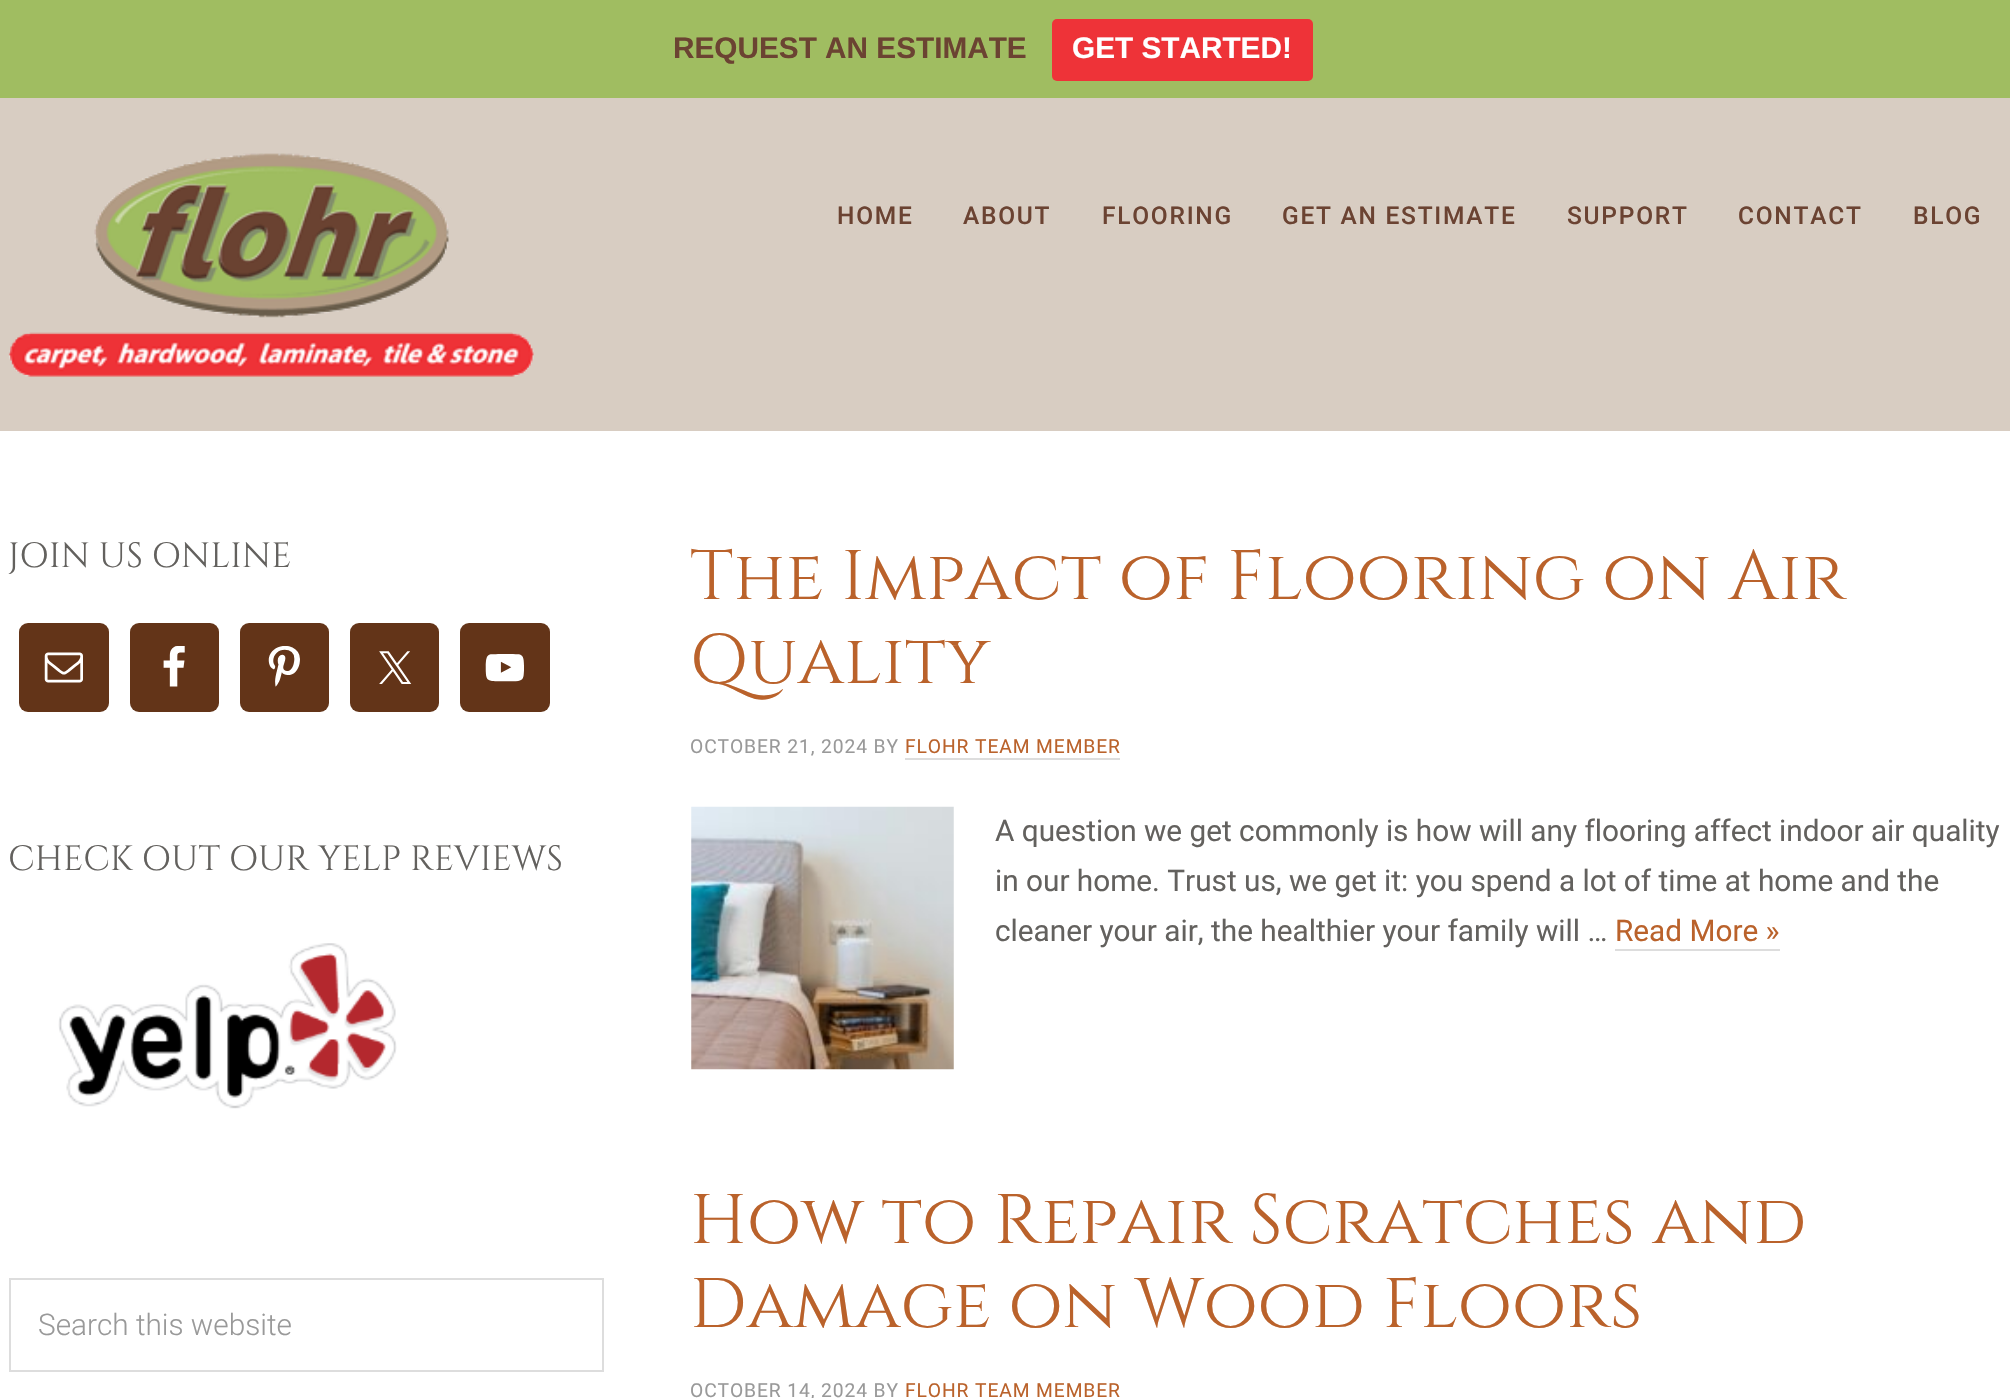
void draw(SkCanvas* c) {
SkPaint p;
p.setAntiAlias(true);
auto F=[&](const char* family, int weight, float size, bool italic = false){SkFontStyle style(weight, SkFontStyle::kNormal_Width,italic ? SkFontStyle::kItalic_Slant : SkFontStyle::kUpright_Slant);SkFont result(fontMgr->matchFamilyStyle(family, style), size);result.setSubpixel(true);return result;};
auto T=[&](const char* s, float x, float y, const SkFont& font){c->drawString(s, x, y, font, p);};
auto L=[&](const char* s, float x, float y, const SkFont& font, const SkPaint& ink, float letter, float word){std::vector<SkGlyphID> glyphs(font.countText(s, strlen(s), SkTextEncoding::kUTF8));std::vector<float> xs(glyphs.size());font.textToGlyphs(s, strlen(s), SkTextEncoding::kUTF8, glyphs);font.getXPos(glyphs, xs, x);float extra = 0;for (size_t i = 0; i < glyphs.size(); i++) {xs[i] += extra;extra += letter + word * (glyphs[i] == font.unicharToGlyph(' '));}c->drawTextBlob(SkTextBlob::MakeFromPosHGlyphs(glyphs, xs, y, font), 0, 0, ink);};
auto R=[&](float x, float y, float w, float h){c->drawRect(SkRect::MakeXYWH(x, y, w, h), p);};
auto Q=[&](float x, float y, float w, float h, float radius){c->drawRoundRect(SkRect::MakeXYWH(x, y, w, h), radius, radius, p);};
auto I=[&](const char* path, float x, float y, float w, float h){auto image = SkImages::DeferredFromEncodedData(SkData::MakeFromFileName(path));c->drawImageRect(image, SkRect::MakeXYWH(x, y, w, h), SkSamplingOptions());};
c->clear(0xffd8cdc2);
p.setColor(0xffa0bd61);
R(0,0,2010,98);
auto f1 = F("Liberation Sans",700,29.75);
p.setColor(0xff6b4332);
T("REQUEST AN ESTIMATE",673,58,f1);
p.setColor(0xffee3338);
Q(1052,19,261,62,5);
p.setColor(0xffffffff);
T("GET STARTED!",1072,58,f1);
I("1.png",8,153,526,224);
I("2.png",9,153,525,224);
I("3.png",9,153,525,224);
auto f2 = F("Roboto",500,24.5);
p.setColor(0xff6b4332);
L("HOME",837,224,f2,p,1.75,0);
L("ABOUT",963,224,f2,p,1.75,0);
L("FLOORING",1102,224,f2,p,1.75,0);
L("GET AN ESTIMATE",1282,224,f2,p,1.75,0);
L("SUPPORT",1567,224,f2,p,1.75,0);
L("CONTACT",1738,224,f2,p,1.75,0);
L("BLOG",1913,224,f2,p,1.75,0);
p.setColor(0xffffffff);
R(0,431,2010,967);
auto f3 = F("Cinzel",400,35);
p.setColor(0xff63615e);
T("JOIN US ONLINE",8,567,f3);
p.setColor(0xff633418);
Q(19,623,90,89,9);
I("4.png",44,652,39,31);
Q(130,623,89,89,9);
I("5.png",163,646,22,41);
Q(240,623,89,89,9);
I("6.png",268,646,32,41);
Q(350,623,89,89,9);
I("7.png",379,651,33,33);
Q(460,623,90,89,9);
I("8.png",485,654,39,28);
p.setColor(0xff63615e);
T("CHECK OUT OUR YELP REVIEWS",8,870,f3);
I("9.png",58,943,339,166);
p.setStroke(true);
p.setStrokeWidth(2);
p.setColor(0xffdddddd);
c->drawRect(SkRect::MakeXYWH(10,1279,593,92),p);
auto f4 = F("Roboto",300,29.75);
p.setStroke(false);
p.setColor(0xff999999);
T("Search this website",38,1335,f4);
auto f5 = F("Cinzel",400,70);
p.setColor(0xffba622b);
T("The Impact of Flooring on Air",690,599,f5);
T("Quality",690,683,f5);
auto f6 = F("Roboto",400,19.25);
p.setColor(0xff999999);
L("OCTOBER 21, 2024 BY",690,753,f6,p,.9,0);
p.setColor(0xffba622b);
L("FLOHR TEAM MEMBER",905,753,f6,p,.9,0);
p.setColor(0xffdddddd);
R(905,758,215,2);
I("10.png",691,806,263,264);
auto f7 = F("Roboto",400,29.75);
p.setColor(0xff63615e);
T("A question we get commonly is how will any flooring affect indoor air quality",995,841,f7);
T("in our home. Trust us, we get it: you spend a lot of time at home and the",995,891,f7);
T("cleaner your air, the healthier your family will …",995,941,f7);
p.setColor(0xffba622b);
T("Read More »",1615,941,f7);
p.setColor(0xffdddddd);
R(1615,949,165,2);
p.setColor(0xffba622b);
T("How to Repair Scratches and",690,1243,f5);
T("Damage on Wood Floors",690,1327,f5);
p.setColor(0xff999999);
L("OCTOBER 14, 2024 BY",690,1397,f6,p,.9,0);
p.setColor(0xffba622b);
L("FLOHR TEAM MEMBER",905,1397,f6,p,.9,0);
}
